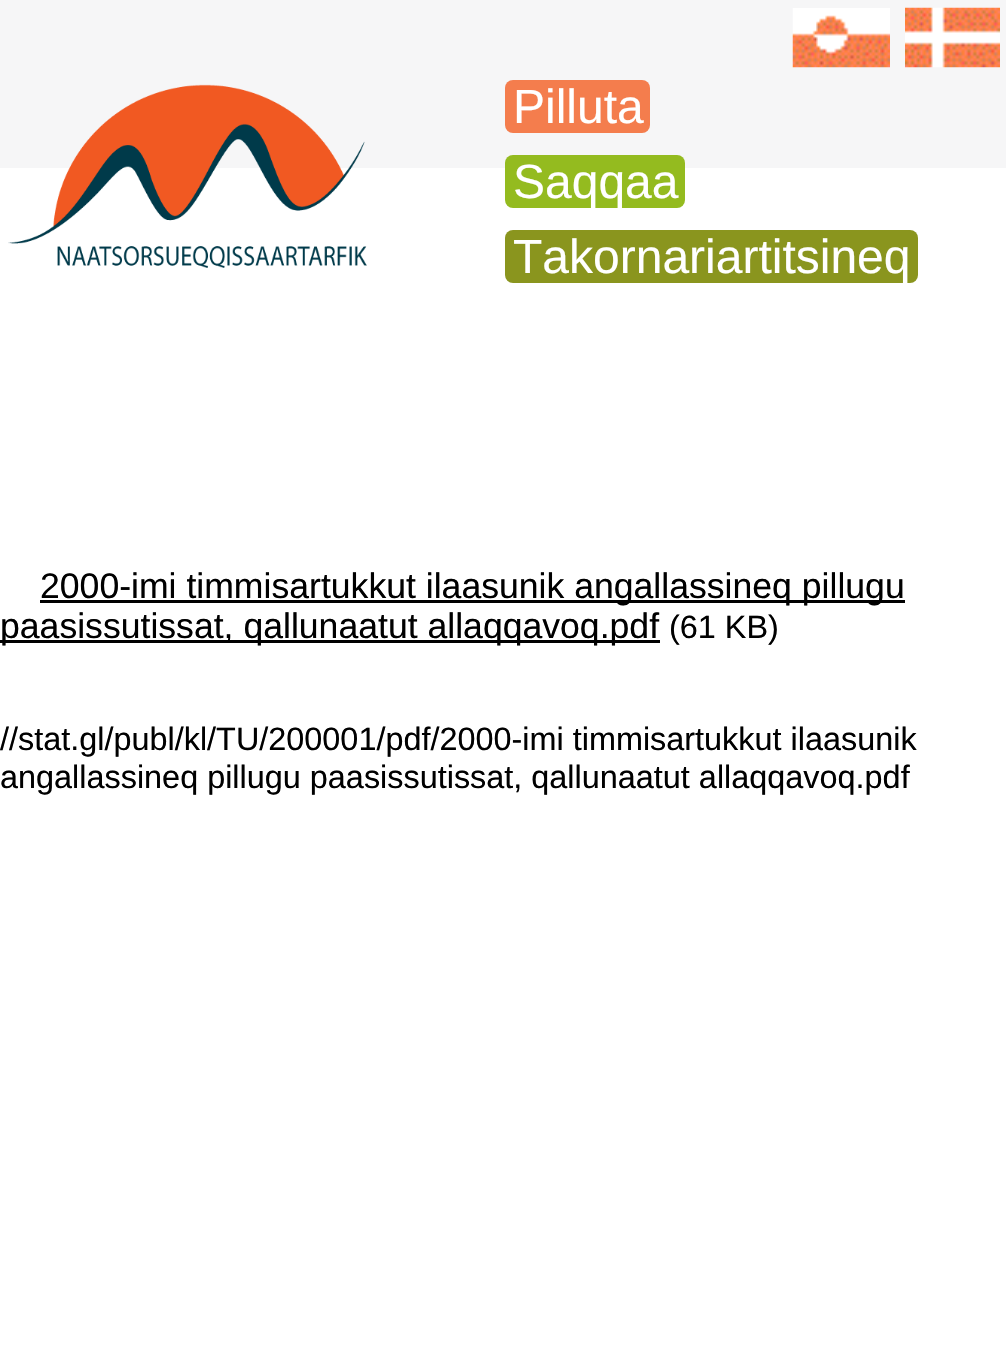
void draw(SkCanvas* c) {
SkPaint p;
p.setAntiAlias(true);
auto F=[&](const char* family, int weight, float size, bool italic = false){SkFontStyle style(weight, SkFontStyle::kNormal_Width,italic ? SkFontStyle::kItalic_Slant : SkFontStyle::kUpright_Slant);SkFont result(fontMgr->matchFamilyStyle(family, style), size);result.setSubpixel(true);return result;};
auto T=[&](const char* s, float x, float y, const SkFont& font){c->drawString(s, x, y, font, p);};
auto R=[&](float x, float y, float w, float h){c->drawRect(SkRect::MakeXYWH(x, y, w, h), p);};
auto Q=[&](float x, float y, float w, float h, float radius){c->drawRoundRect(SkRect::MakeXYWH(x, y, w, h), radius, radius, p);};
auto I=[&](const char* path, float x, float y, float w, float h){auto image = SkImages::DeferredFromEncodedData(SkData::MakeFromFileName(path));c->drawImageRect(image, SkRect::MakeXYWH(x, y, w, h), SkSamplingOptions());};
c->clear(0xffffffff);
p.setColor(0xfff6f6f7);
R(0,0,1006,168);
I("1.png",792,8,98,60);
I("2.png",905,7,95,61);
I("3.png",8,84,359,184);
p.setColor(0xfff47d4d);
Q(505,80,145,53,8);
auto f1 = F("Liberation Sans",400,48);
p.setColor(0xffffffff);
T("Pilluta",513,123,f1);
p.setColor(0xff94bb1f);
Q(505,155,180,53,8);
p.setColor(0xffffffff);
T("Saqqaa",513,198,f1);
p.setColor(0xff8a951e);
Q(505,230,413,53,8);
p.setColor(0xffffffff);
T("Takornariartitsineq",513,273,f1);
p.setColor(0xff000000);
R(40,600,865,3);
auto f2 = F("Liberation Sans",400,35.6);
T("2000-imi timmisartukkut ilaasunik angallassineq pillugu",40,598,f2);
R(0,640,660,3);
T("paasissutissat, qallunaatut allaqqavoq.pdf",0,638,f2);
auto f3 = F("Liberation Sans",400,32.4);
T("(61 KB)",669,638,f3);
T("//stat.gl/publ/kl/TU/200001/pdf/2000-imi timmisartukkut ilaasunik",0,750,f3);
T("angallassineq pillugu paasissutissat, qallunaatut allaqqavoq.pdf",0,788,f3);
}
